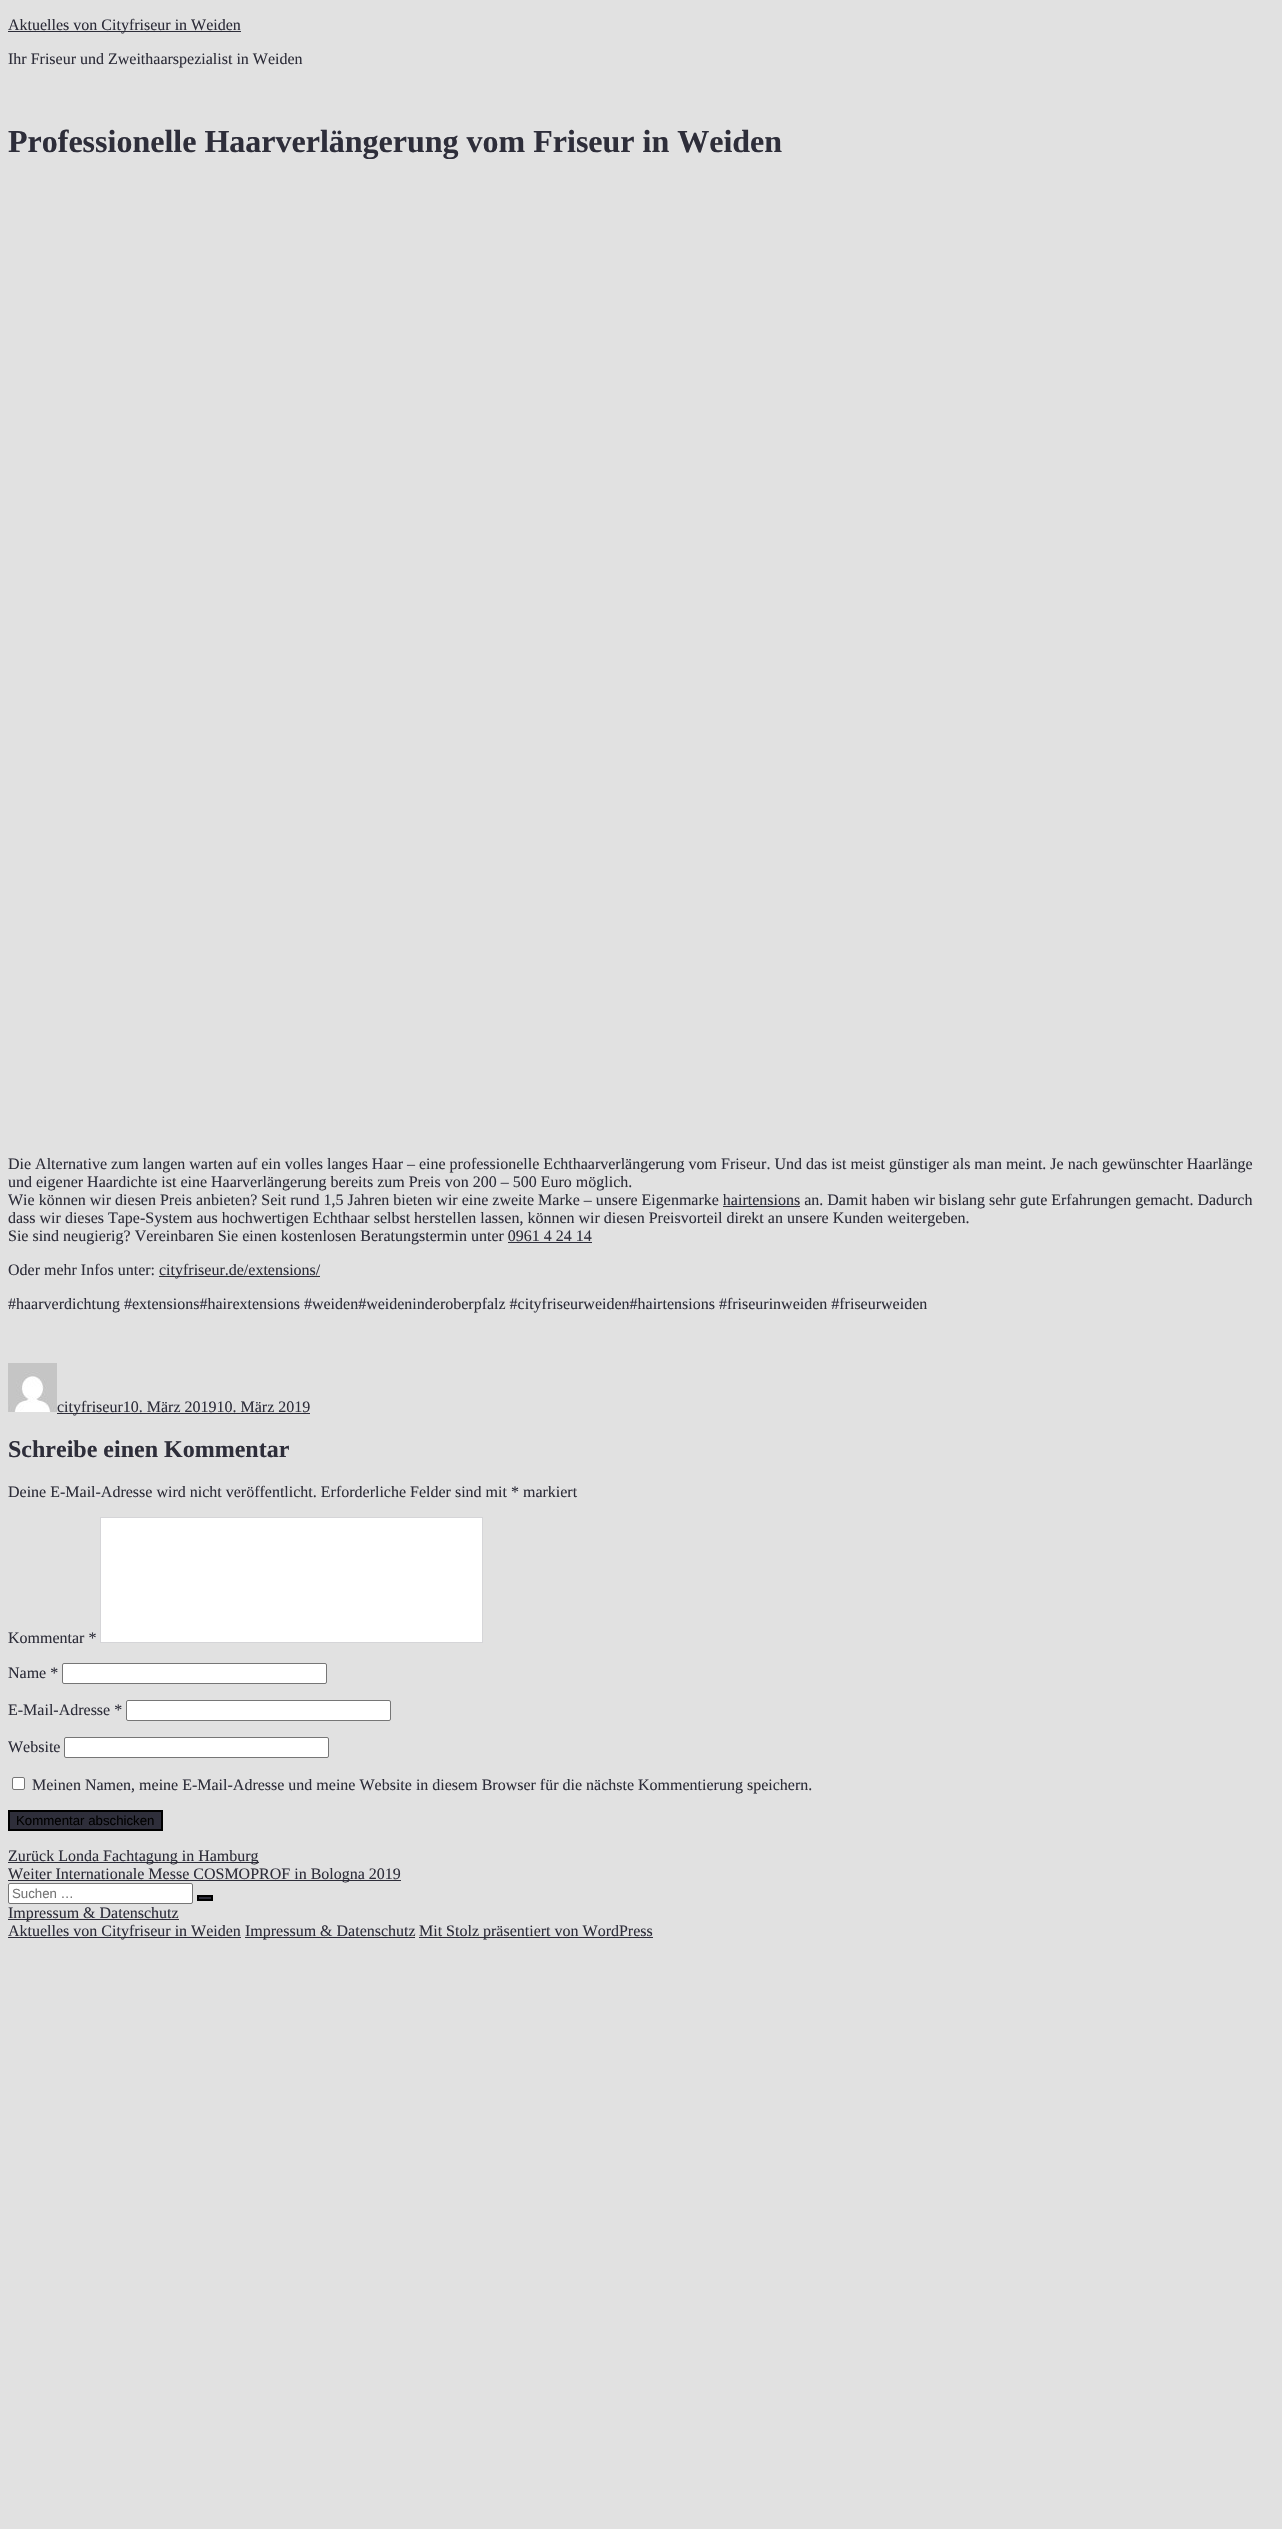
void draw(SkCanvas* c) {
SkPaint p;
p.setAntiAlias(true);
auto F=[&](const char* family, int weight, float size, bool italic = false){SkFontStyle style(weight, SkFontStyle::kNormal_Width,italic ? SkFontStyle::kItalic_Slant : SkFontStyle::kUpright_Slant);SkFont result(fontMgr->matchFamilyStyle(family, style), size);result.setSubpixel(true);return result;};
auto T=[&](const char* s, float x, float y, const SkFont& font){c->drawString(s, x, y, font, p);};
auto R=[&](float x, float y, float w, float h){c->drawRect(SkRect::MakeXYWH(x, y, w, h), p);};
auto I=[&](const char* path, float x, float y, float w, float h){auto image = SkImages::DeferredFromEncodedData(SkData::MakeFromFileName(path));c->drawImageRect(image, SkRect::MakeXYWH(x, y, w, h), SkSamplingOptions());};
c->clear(0xffe1e1e1);
p.setColor(0xff2e2e3a);
R(8,31,233,1);
auto f1 = F("Liberation Serif",400,16);
T("Aktuelles von Cityfriseur in Weiden",8,30,f1);
T("Ihr Friseur und Zweithaarspezialist in Weiden",8,64,f1);
auto f2 = F("Liberation Serif",700,32);
T("Professionelle Haarverlängerung vom Friseur in Weiden",8,152,f2);
T("Die Alternative zum langen warten auf ein volles langes Haar – eine professionelle Echthaarverlängerung vom Friseur. Und das ist meist günstiger als man meint. Je nach gewünschter Haarlänge",8,1169,f1);
T("und eigener Haardichte ist eine Haarverlängerung bereits zum Preis von 200 – 500 Euro möglich.",8,1187,f1);
T("Wie können wir diesen Preis anbieten? Seit rund 1,5 Jahren bieten wir eine zweite Marke – unsere Eigenmarke hairtensions an. Damit haben wir bislang sehr gute Erfahrungen gemacht. Dadurch",8,1205,f1);
R(723,1206,77,1);
T("dass wir dieses Tape-System aus hochwertigen Echthaar selbst herstellen lassen, können wir diesen Preisvorteil direkt an unsere Kunden weitergeben.",8,1223,f1);
T("Sie sind neugierig? Vereinbaren Sie einen kostenlosen Beratungstermin unter 0961 4 24 14",8,1241,f1);
R(508,1242,84,1);
T("Oder mehr Infos unter:",8,1275,f1);
R(159,1276,161,1);
T("cityfriseur.de/extensions/",159,1275,f1);
T("#haarverdichtung #extensions#hairextensions #weiden#weideninderoberpfalz #cityfriseurweiden#hairtensions #friseurinweiden #friseurweiden",8,1309,f1);
I("1.png",8,1363,49,49);
R(57,1413,253,1);
T("cityfriseur10. März 201910. März 2019",57,1412,f1);
auto f3 = F("Liberation Serif",700,24);
T("Schreibe einen Kommentar",8,1457,f3);
T("Deine E-Mail-Adresse wird nicht veröffentlicht. Erforderliche Felder sind mit * markiert",8,1497,f1);
T("Kommentar *",8,1643,f1);
p.setColor(0xffffffff);
c->drawRect(SkRect::MakeXYWH(100.5,1517.5,382,125),p);
p.setStroke(true);
p.setStrokeWidth(1);
p.setColor(0xffd5d5d8);
c->drawRect(SkRect::MakeXYWH(100.5,1517.5,382,125),p);
p.setStroke(false);
p.setColor(0xff2e2e3a);
T("Name *",8,1678,f1);
p.setColor(0xffffffff);
c->drawRoundRect(SkRect::MakeXYWH(62.5,1663.5,264,20),1.5,1.5,p);
p.setStroke(true);
p.setColor(0xff767676);
c->drawRoundRect(SkRect::MakeXYWH(62.5,1663.5,264,20),1.5,1.5,p);
p.setStroke(false);
p.setColor(0xff2e2e3a);
T("E-Mail-Adresse *",8,1715,f1);
p.setColor(0xffffffff);
c->drawRoundRect(SkRect::MakeXYWH(126.5,1700.5,264,20),1.5,1.5,p);
p.setStroke(true);
p.setColor(0xff767676);
c->drawRoundRect(SkRect::MakeXYWH(126.5,1700.5,264,20),1.5,1.5,p);
p.setStroke(false);
p.setColor(0xff2e2e3a);
T("Website",8,1752,f1);
p.setColor(0xffffffff);
c->drawRoundRect(SkRect::MakeXYWH(64.5,1737.5,264,20),1.5,1.5,p);
p.setStroke(true);
p.setColor(0xff767676);
c->drawRoundRect(SkRect::MakeXYWH(64.5,1737.5,264,20),1.5,1.5,p);
p.setStroke(false);
p.setColor(0xffffffff);
c->drawRoundRect(SkRect::MakeXYWH(12.5,1777.5,12,12),1.5,1.5,p);
p.setStroke(true);
p.setColor(0xff767676);
c->drawRoundRect(SkRect::MakeXYWH(12.5,1777.5,12,12),1.5,1.5,p);
p.setStroke(false);
p.setColor(0xff2e2e3a);
T("Meinen Namen, meine E-Mail-Adresse und meine Website in diesem Browser für die nächste Kommentierung speichern.",32,1790,f1);
c->drawRect(SkRect::MakeXYWH(9,1811,153,19),p);
p.setStroke(true);
p.setStrokeWidth(2);
p.setColor(0xff000000);
c->drawRect(SkRect::MakeXYWH(9,1811,153,19),p);
auto f4 = F("Liberation Sans",400,13.25);
p.setStroke(false);
T("Kommentar abschicken",16,1825,f4);
p.setColor(0xff2e2e3a);
R(8,1862,251,1);
T("Zurück Londa Fachtagung in Hamburg",8,1861,f1);
R(8,1880,393,1);
T("Weiter Internationale Messe COSMOPROF in Bologna 2019",8,1879,f1);
p.setColor(0xffffffff);
c->drawRoundRect(SkRect::MakeXYWH(8.5,1883.5,184,20),1.5,1.5,p);
p.setStroke(true);
p.setStrokeWidth(1);
p.setColor(0xff767676);
c->drawRoundRect(SkRect::MakeXYWH(8.5,1883.5,184,20),1.5,1.5,p);
p.setStroke(false);
p.setColor(0xff757575);
T("Suchen …",12,1898,f4);
p.setColor(0xff2e2e3a);
c->drawRect(SkRect::MakeXYWH(198,1896,14,4),p);
p.setStroke(true);
p.setStrokeWidth(2);
p.setColor(0xff000000);
c->drawRect(SkRect::MakeXYWH(198,1896,14,4),p);
p.setStroke(false);
p.setColor(0xff2e2e3a);
R(8,1919,171,1);
T("Impressum & Datenschutz",8,1918,f1);
R(8,1937,233,1);
T("Aktuelles von Cityfriseur in Weiden",8,1936,f1);
R(245,1937,170,1);
T("Impressum & Datenschutz",245,1936,f1);
R(419,1937,234,1);
T("Mit Stolz präsentiert von WordPress",419,1936,f1);
}
